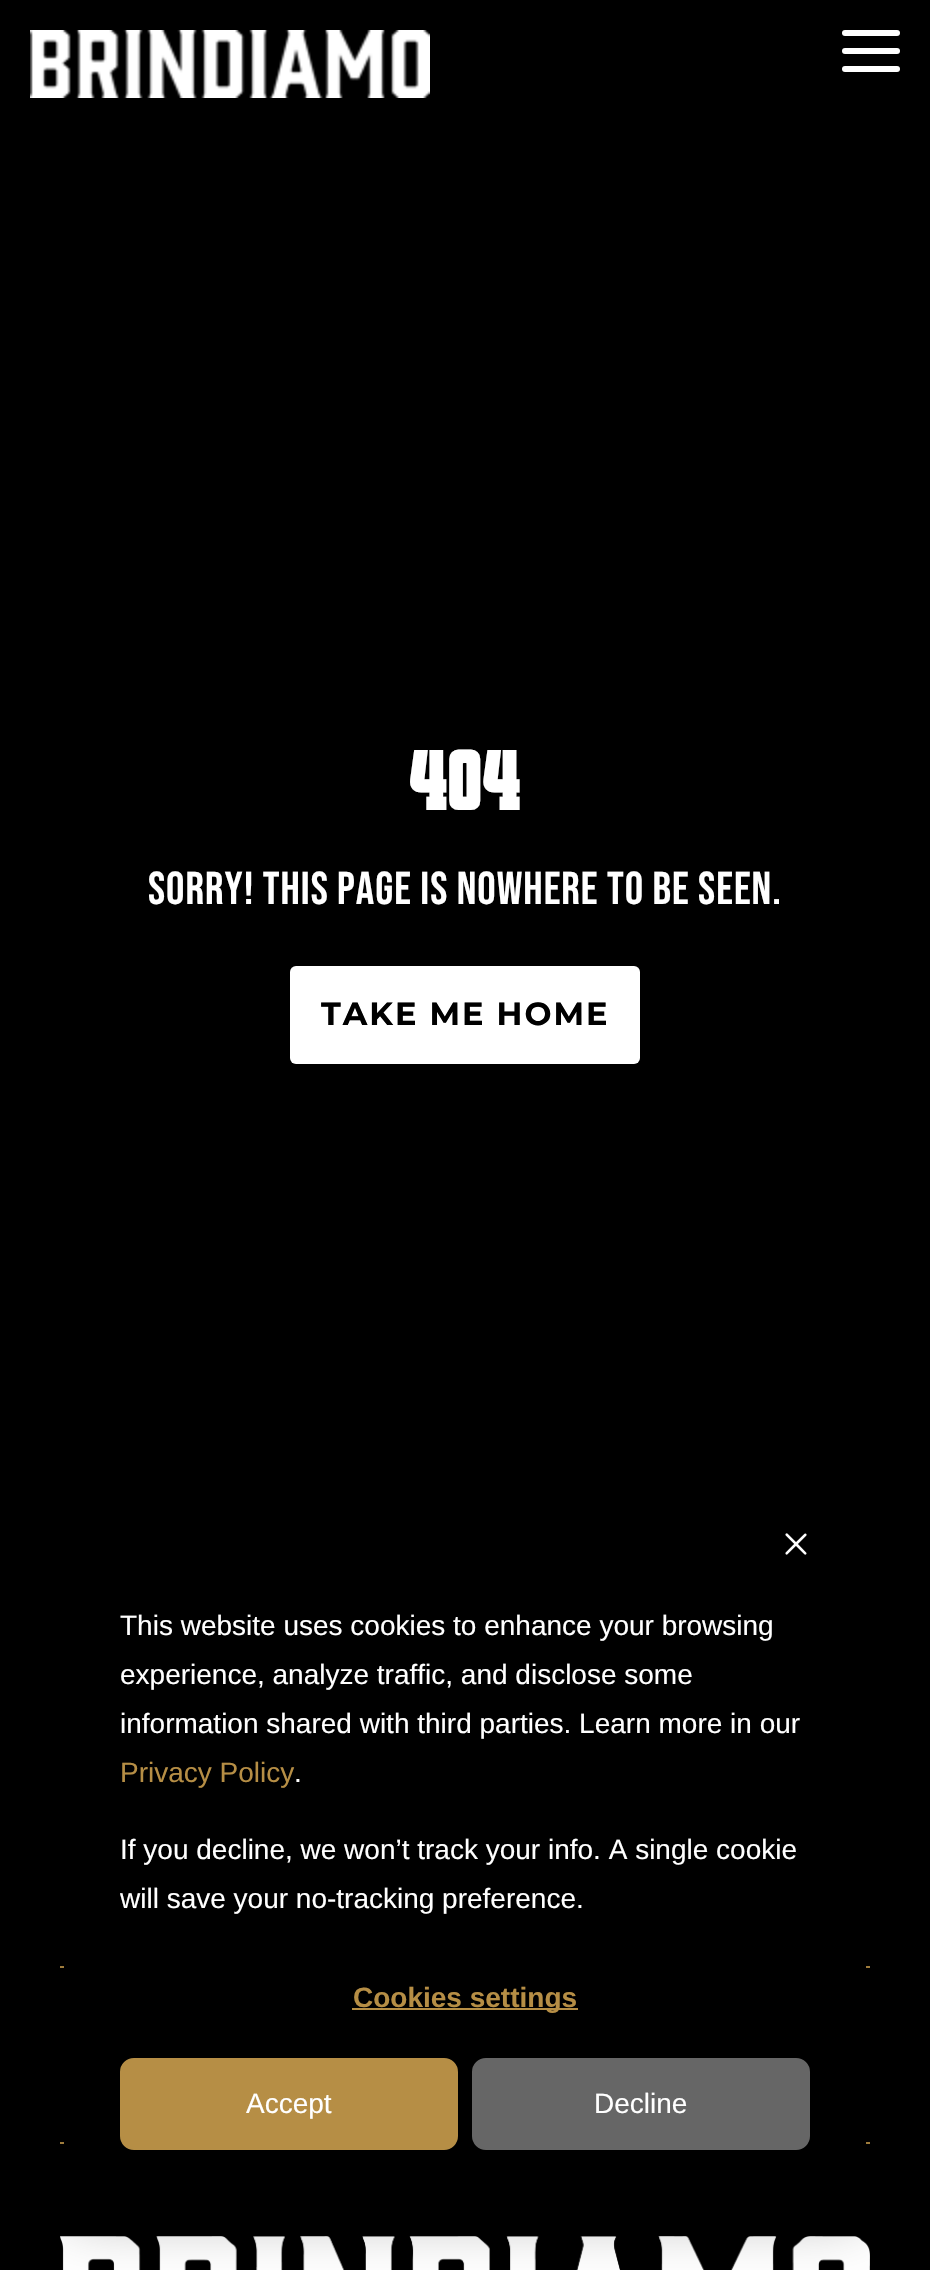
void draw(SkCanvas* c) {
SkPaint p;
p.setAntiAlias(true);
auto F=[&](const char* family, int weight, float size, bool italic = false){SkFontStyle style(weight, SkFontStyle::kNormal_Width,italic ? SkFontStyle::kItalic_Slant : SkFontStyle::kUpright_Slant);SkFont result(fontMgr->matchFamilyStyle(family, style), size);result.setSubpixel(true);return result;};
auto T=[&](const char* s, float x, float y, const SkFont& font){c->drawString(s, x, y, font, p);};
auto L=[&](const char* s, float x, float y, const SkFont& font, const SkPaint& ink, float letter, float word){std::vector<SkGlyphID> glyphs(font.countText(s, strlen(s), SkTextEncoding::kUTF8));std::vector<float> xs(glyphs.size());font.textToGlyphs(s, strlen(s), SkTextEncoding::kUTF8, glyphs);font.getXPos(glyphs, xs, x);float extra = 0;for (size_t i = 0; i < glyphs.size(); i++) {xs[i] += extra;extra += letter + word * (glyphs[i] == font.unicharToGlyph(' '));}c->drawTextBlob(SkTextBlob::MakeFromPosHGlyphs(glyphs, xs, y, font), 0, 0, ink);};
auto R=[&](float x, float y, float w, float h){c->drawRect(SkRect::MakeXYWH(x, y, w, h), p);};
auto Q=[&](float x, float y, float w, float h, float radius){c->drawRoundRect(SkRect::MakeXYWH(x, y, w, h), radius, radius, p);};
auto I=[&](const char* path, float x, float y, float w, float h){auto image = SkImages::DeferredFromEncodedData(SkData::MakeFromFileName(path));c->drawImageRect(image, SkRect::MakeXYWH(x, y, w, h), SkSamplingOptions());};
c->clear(0xff000000);
I("1.png",30,30,400,68);
p.setColor(0xffffffff);
Q(842,30,58,6,3);
Q(842,48,58,6,3);
Q(842,66,58,6,3);
auto f1 = F("Karantina",700,100);
T("404",409,810,f1);
auto f2 = F("Bebas Neue",400,46);
L("SORRY! THIS PAGE IS NOWHERE TO BE SEEN.",148,904,f2,p,1,0);
Q(290,966,350,98,6);
auto f3 = F("Montserrat",700,32);
p.setColor(0xff000000);
L("TAKE ME HOME",321,1025,f3,p,2,0);
p.setColor(0xffb68e45);
R(60,1966,810,2);
R(60,2142,810,2);
I("2.png",60,2236,810,34);
p.setColor(0x47000000);
p.setMaskFilter(SkMaskFilter::MakeBlur(kNormal_SkBlurStyle, 28));
c->drawRoundRect(SkRect::MakeXYWH(64,1484,802,738),24,24,p);
p.setMaskFilter(nullptr);
p.setColor(0xff000000);
Q(64,1468,802,738,24);
I("3.png",785,1533,22,22);
auto f4 = F("Liberation Sans",400,28);
p.setColor(0xffffffff);
T("This website uses cookies to enhance your browsing",120,1635,f4);
T("experience, analyze traffic, and disclose some",120,1684,f4);
T("information shared with third parties. Learn more in our",120,1733,f4);
p.setColor(0xffb68e45);
T("Privacy Policy",120,1782,f4);
p.setColor(0xffffffff);
T(".",294,1782,f4);
T("If you decline, we won’t track your info. A single cookie",120,1859,f4);
T("will save your no-tracking preference.",120,1908,f4);
p.setColor(0xffb68e45);
R(352,2008,226,2);
auto f5 = F("Liberation Sans",700,28);
T("Cookies settings",353,2007,f5);
c->drawRoundRect(SkRect::MakeXYWH(121,2059,336,90),13,13,p);
p.setStroke(true);
p.setStrokeWidth(2);
c->drawRoundRect(SkRect::MakeXYWH(121,2059,336,90),13,13,p);
p.setStroke(false);
p.setColor(0xffffffff);
T("Accept",246,2113,f4);
p.setColor(0xff666666);
c->drawRoundRect(SkRect::MakeXYWH(473,2059,336,90),13,13,p);
p.setStroke(true);
c->drawRoundRect(SkRect::MakeXYWH(473,2059,336,90),13,13,p);
p.setStroke(false);
p.setColor(0xffffffff);
T("Decline",594,2113,f4);
}
